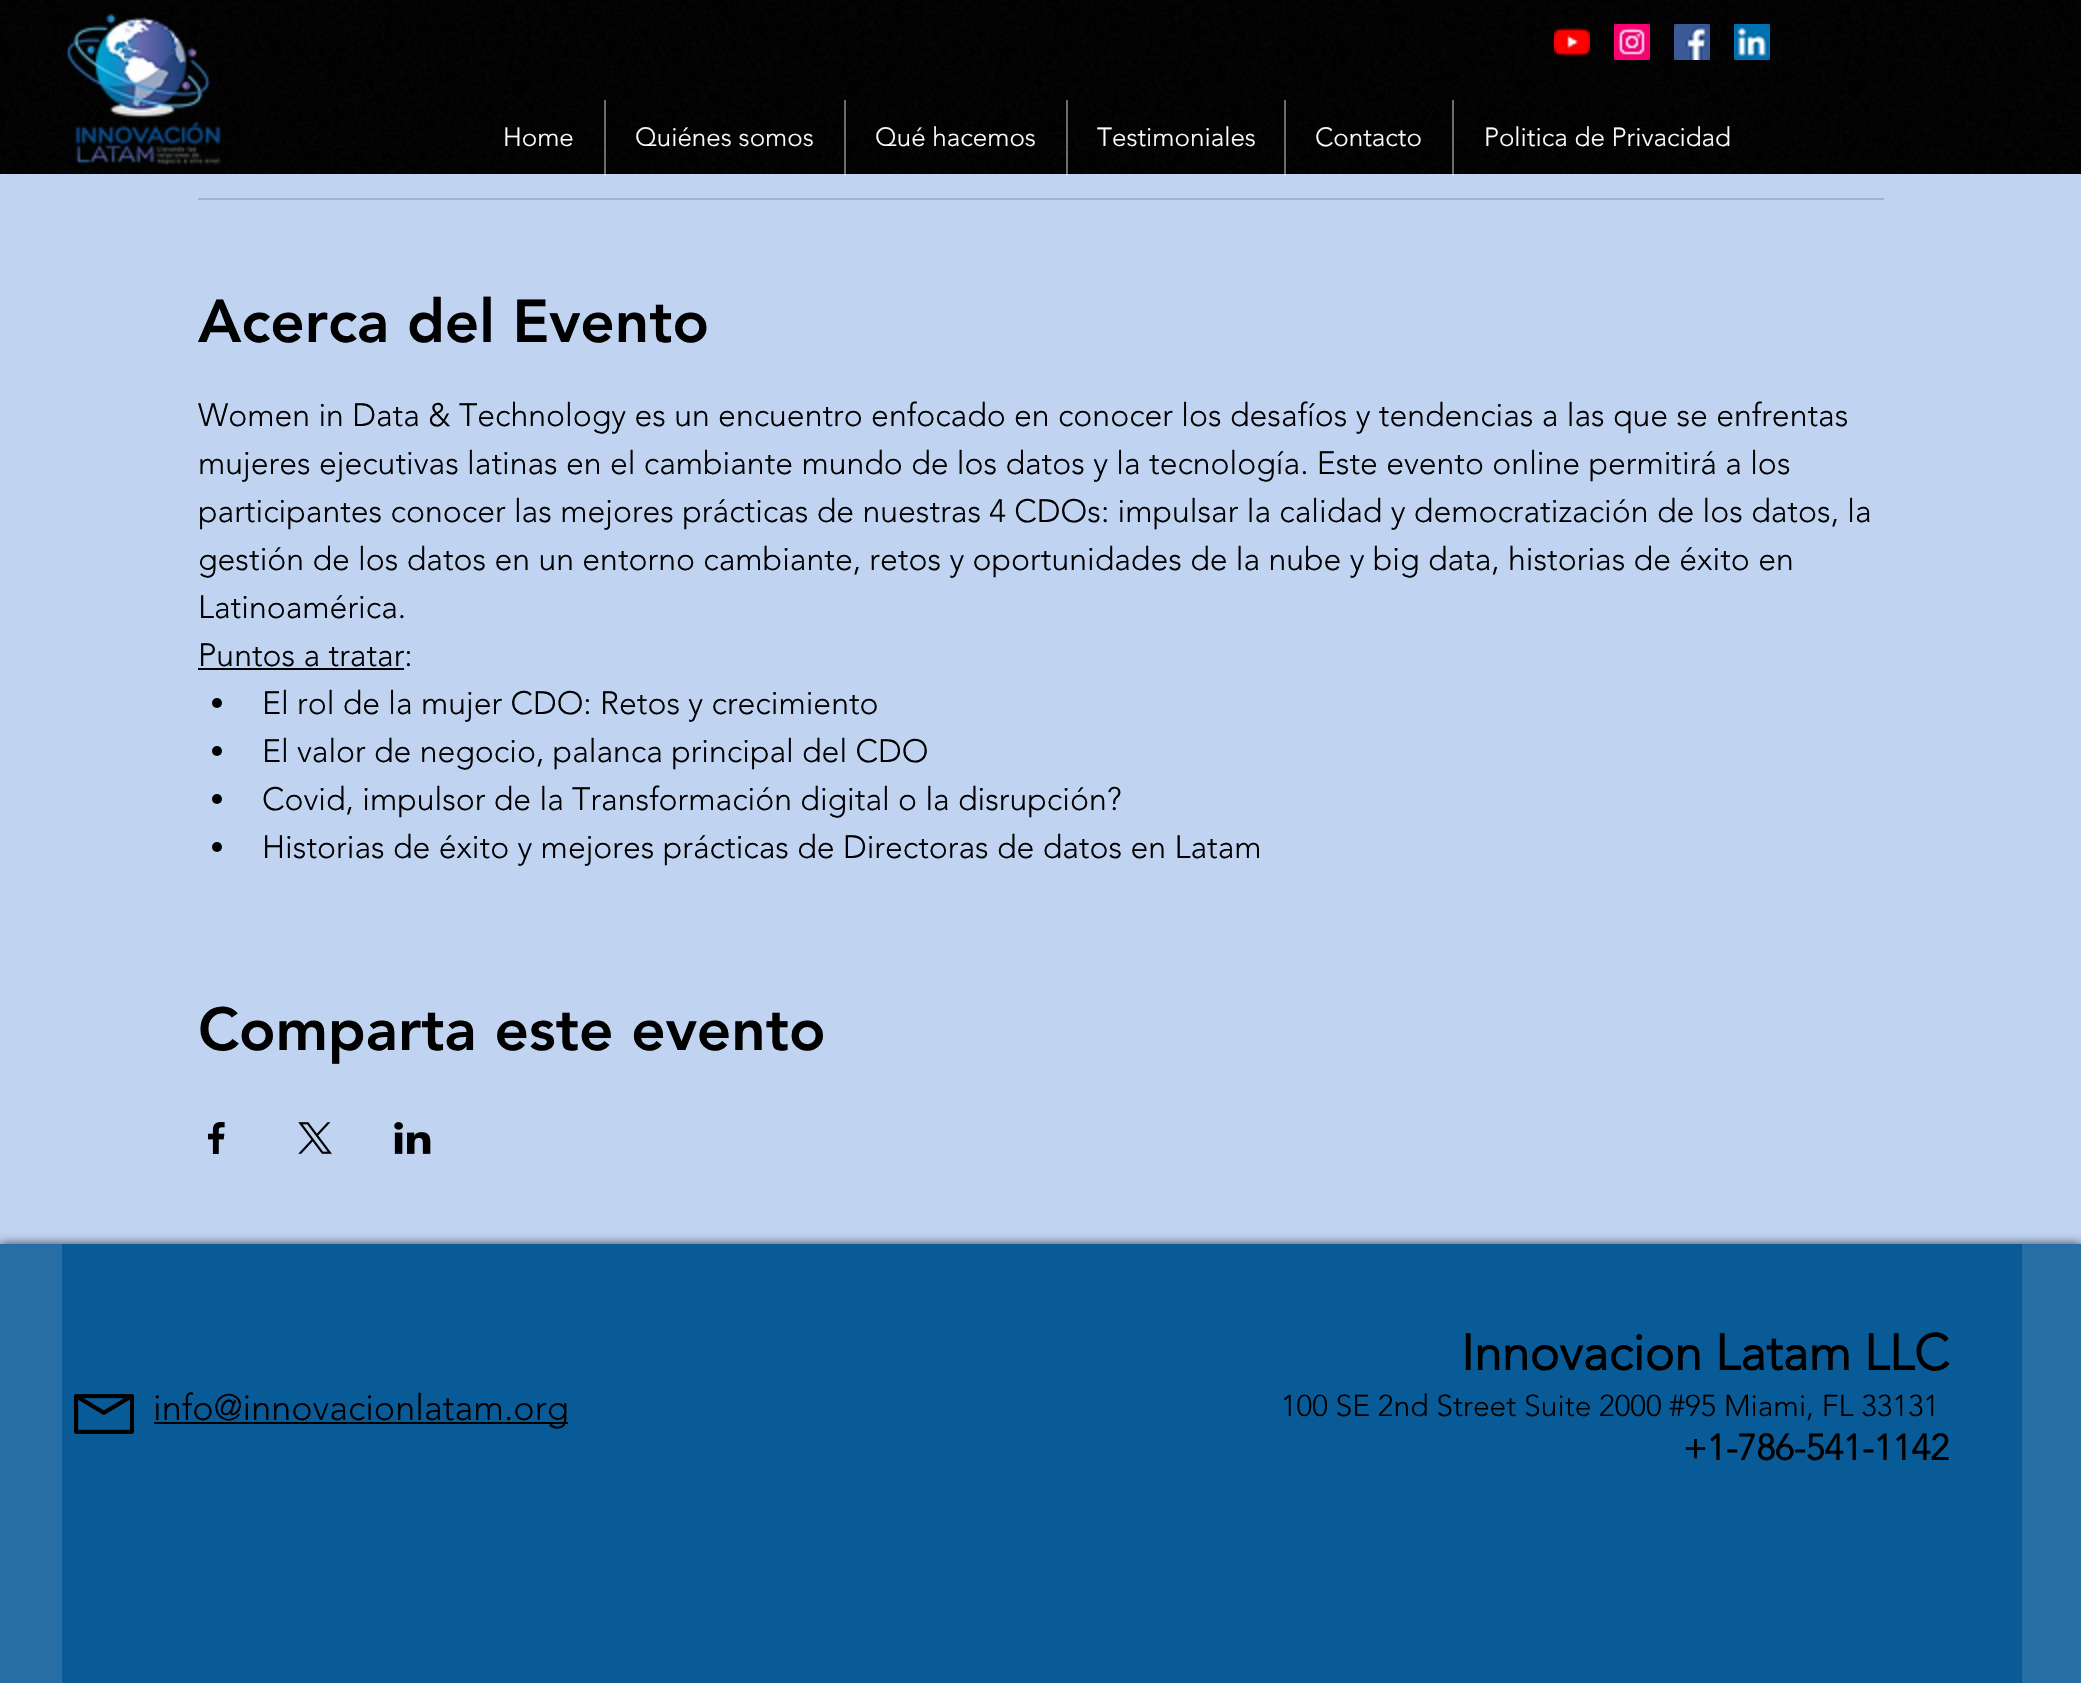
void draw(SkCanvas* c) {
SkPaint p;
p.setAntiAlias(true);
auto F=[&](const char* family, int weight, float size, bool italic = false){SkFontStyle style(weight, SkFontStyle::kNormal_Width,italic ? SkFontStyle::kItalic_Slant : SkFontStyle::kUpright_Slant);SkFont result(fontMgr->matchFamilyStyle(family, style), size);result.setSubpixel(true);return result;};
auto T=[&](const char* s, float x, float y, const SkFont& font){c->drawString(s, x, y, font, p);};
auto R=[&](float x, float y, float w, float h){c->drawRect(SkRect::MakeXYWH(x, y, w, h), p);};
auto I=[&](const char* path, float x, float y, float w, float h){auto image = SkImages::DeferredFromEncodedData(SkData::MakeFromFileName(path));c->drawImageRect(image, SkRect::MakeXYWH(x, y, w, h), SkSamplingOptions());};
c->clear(0xffc0d3f1);
p.setColor(0xff000000);
R(0,0,2081,174);
I("1.png",0,0,2081,174);
I("2.png",66,13,155,152);
I("3.png",1554,27,36,30);
I("4.png",1614,24,36,36);
I("5.png",1674,24,36,36);
I("6.png",1734,24,36,36);
auto f1 = F("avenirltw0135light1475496",300,26);
p.setColor(0xfffafcff);
T("Home",503,146,f1);
p.setColor(0x6bfafcff);
R(604,100,2,76);
p.setColor(0xfffafcff);
T("Quiénes somos",635,146,f1);
p.setColor(0x6bfafcff);
R(844,100,2,76);
p.setColor(0xfffafcff);
T("Qué hacemos",875,146,f1);
p.setColor(0x6bfafcff);
R(1066,100,2,76);
p.setColor(0xfffafcff);
T("Testimoniales",1097,146,f1);
p.setColor(0x6bfafcff);
R(1284,100,2,76);
p.setColor(0xfffafcff);
T("Contacto",1315,146,f1);
p.setColor(0x6bfafcff);
R(1452,100,2,76);
p.setColor(0xfffafcff);
T("Politica de Privacidad",1484,146,f1);
p.setColor(0xffa3b3cd);
R(198,198,1686,2);
auto f2 = F("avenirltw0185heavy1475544",900,60);
p.setColor(0xff000000);
T("Acerca del Evento",198,342,f2);
auto f3 = F("avenirltw0135light1475496",300,32);
T("Women in Data & Technology es un encuentro enfocado en conocer los desafíos y tendencias a las que se enfrentas",198,426,f3);
T("mujeres ejecutivas latinas en el cambiante mundo de los datos y la tecnología. Este evento online permitirá a los",198,474,f3);
T("participantes conocer las mejores prácticas de nuestras 4 CDOs: impulsar la calidad y democratización de los datos, la",198,522,f3);
T("gestión de los datos en un entorno cambiante, retos y oportunidades de la nube y big data, historias de éxito en",198,570,f3);
T("Latinoamérica.",198,618,f3);
T("Puntos a tratar:",198,666,f3);
R(198,668,206,2);
c->drawCircle(217,703,5,p);
T("El rol de la mujer CDO: Retos y crecimiento",262,714,f3);
c->drawCircle(217,751,5,p);
T("El valor de negocio, palanca principal del CDO",262,762,f3);
c->drawCircle(217,799,5,p);
T("Covid, impulsor de la Transformación digital o la disrupción?",262,810,f3);
c->drawCircle(217,847,5,p);
T("Historias de éxito y mejores prácticas de Directoras de datos en Latam",262,858,f3);
T("Comparta este evento",198,1050,f2);
I("7.png",208,1122,17,32);
I("8.png",298,1122,34,32);
I("9.png",394,1122,37,32);
p.setColor(0xb3000000);
p.setMaskFilter(SkMaskFilter::MakeBlur(kNormal_SkBlurStyle, 5));
c->drawRect(SkRect::MakeXYWH(0,1244,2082,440),p);
p.setMaskFilter(nullptr);
p.setColor(0xff266ea4);
R(0,1244,2081,439);
p.setColor(0xff095b97);
R(62,1244,1960,439);
I("10.png",74,1394,60,40);
p.setColor(0xff000000);
R(154,1422,414,2);
auto f4 = F("avenirltw0135light1475496",300,36);
T("info@innovacionlatam.org",153,1420,f4);
auto f5 = F("avenirltw0135light1475496",700,50);
T("Innovacion Latam LLC",1461,1370,f5);
auto f6 = F("avenirltw0135light1475496",300,30);
T("100 SE 2nd Street Suite 2000 #95 Miami, FL 33131",1281,1416,f6);
auto f7 = F("avenirltw0135light1475496",700,36);
T("+1-786-541-1142",1683,1460,f7);
}
